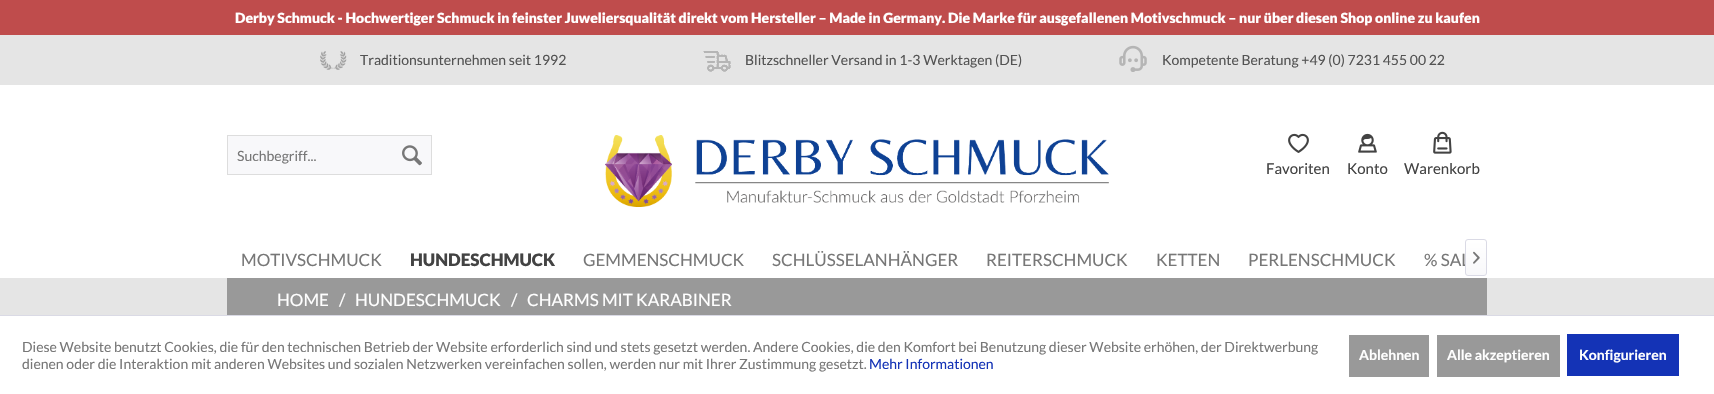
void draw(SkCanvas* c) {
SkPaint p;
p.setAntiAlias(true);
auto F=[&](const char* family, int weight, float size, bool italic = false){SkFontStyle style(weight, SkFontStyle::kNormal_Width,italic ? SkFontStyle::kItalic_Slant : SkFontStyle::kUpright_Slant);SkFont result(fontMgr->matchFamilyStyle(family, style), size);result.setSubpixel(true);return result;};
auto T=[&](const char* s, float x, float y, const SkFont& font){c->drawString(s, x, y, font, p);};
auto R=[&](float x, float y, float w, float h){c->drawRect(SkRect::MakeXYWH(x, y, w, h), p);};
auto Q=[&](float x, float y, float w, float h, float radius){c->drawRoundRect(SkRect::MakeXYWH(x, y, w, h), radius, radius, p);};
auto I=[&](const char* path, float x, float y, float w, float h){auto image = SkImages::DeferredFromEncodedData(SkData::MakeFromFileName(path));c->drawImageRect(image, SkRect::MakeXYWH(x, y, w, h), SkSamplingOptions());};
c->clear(0xffe5e5e5);
p.setColor(0xffbf4c4c);
R(0,0,1714,35);
auto f1 = F("Lato",900,14);
p.setColor(0xffffffff);
T("Derby Schmuck - Hochwertiger Schmuck in feinster Juweliersqualität direkt vom Hersteller – Made in Germany. Die Marke für ausgefallenen Motivschmuck – nur über diesen Shop online zu kaufen",235,23,f1);
R(0,85,1714,193);
I("1.png",320,51,27,19);
auto f2 = F("Lato",400,14);
p.setColor(0xff535353);
T("Traditionsunternehmen seit 1992",360,65,f2);
I("2.png",703,51,28,21);
T("Blitzschneller Versand in 1-3 Werktagen (DE)",745,65,f2);
I("3.png",1119,45,28,27);
T("Kompetente Beratung +49 (0) 7231 455 00 22",1162,65,f2);
p.setColor(0xfff8f8fa);
c->drawRect(SkRect::MakeXYWH(227.5,135.5,204,39),p);
p.setStroke(true);
p.setStrokeWidth(1);
p.setColor(0xffdddddd);
c->drawRect(SkRect::MakeXYWH(227.5,135.5,204,39),p);
p.setStroke(false);
p.setColor(0xff777777);
T("Suchbegriff...",237,161,f2);
I("4.png",402,145,20,21);
I("5.png",605,135,504,72);
I("6.png",1288,133,21,20);
auto f3 = F("Lato",400,15);
p.setColor(0xff434343);
T("Favoriten",1266,174,f3);
I("7.png",1358,133,19,20);
T("Konto",1347,174,f3);
I("8.png",1433,131,19,23);
T("Warenkorb",1404,174,f3);
auto f4 = F("Lato",400,17);
p.setColor(0xff777777);
T("MOTIVSCHMUCK",241,266,f4);
auto f5 = F("Lato",900,17);
p.setColor(0xff434343);
T("HUNDESCHMUCK",410,266,f5);
p.setColor(0xff777777);
T("GEMMENSCHMUCK",583,266,f4);
T("SCHLÜSSELANHÄNGER",772,266,f4);
T("REITERSCHMUCK",986,266,f4);
T("KETTEN",1156,266,f4);
T("PERLENSCHMUCK",1248,266,f4);
T("% SAL",1424,266,f4);
{
const SkColor colors[] = {0xffffffff,0xfff8f8fa};
const float stops[] = {0,1};
const SkPoint ends[] = {{1476,240}, {1476,275}};
p.setShader(SkGradientShader::MakeLinear(ends, colors, stops, 2, SkTileMode::kClamp));
p.setAlpha(255);
}
Q(1466,240,20,35,2);
p.setStroke(true);
p.setShader(nullptr);
p.setColor(0xffdadae5);
c->drawRoundRect(SkRect::MakeXYWH(1465.5,239.5,21,36),2.5,2.5,p);
I("9.png",1473,251,7,13);
p.setStroke(false);
p.setColor(0xff999999);
R(227,278,1260,37);
p.setColor(0xffffffff);
T("HOME",277,306,f4);
T("/",339,306,f4);
T("HUNDESCHMUCK",355,306,f4);
T("/",511,306,f4);
T("CHARMS MIT KARABINER",527,306,f4);
R(0,316,1714,78);
p.setColor(0xffdadae5);
R(0,315,1714,1);
p.setColor(0xff777777);
T("Diese Website benutzt Cookies, die für den technischen Betrieb der Website erforderlich sind und stets gesetzt werden. Andere Cookies, die den Komfort bei Benutzung dieser Website erhöhen, der Direktwerbung",22,352,f2);
T("dienen oder die Interaktion mit anderen Websites und sozialen Netzwerken vereinfachen sollen, werden nur mit Ihrer Zustimmung gesetzt.",22,369,f2);
p.setColor(0xff1433b6);
T("Mehr Informationen",869,369,f2);
p.setColor(0xff999999);
R(1349,335,80,42);
auto f6 = F("Lato",700,14);
p.setColor(0xffffffff);
T("Ablehnen",1359,360,f6);
p.setColor(0xff999999);
R(1437,335,123,42);
p.setColor(0xffffffff);
T("Alle akzeptieren",1447,360,f6);
p.setColor(0xff1433b6);
R(1567,334,112,42);
p.setColor(0xffffffff);
T("Konfigurieren",1579,360,f6);
}
